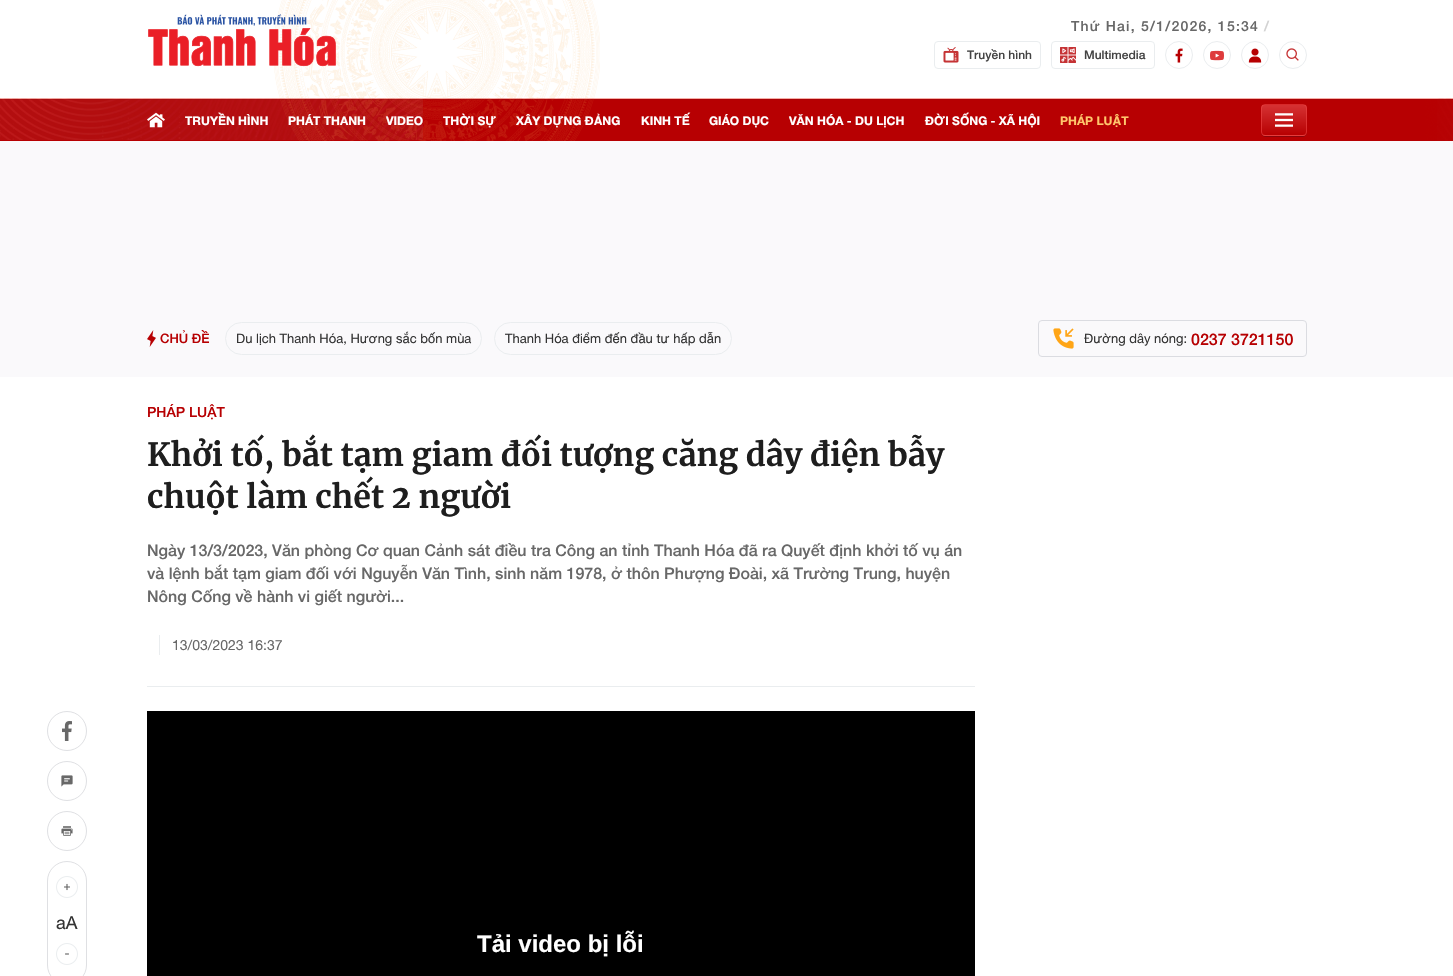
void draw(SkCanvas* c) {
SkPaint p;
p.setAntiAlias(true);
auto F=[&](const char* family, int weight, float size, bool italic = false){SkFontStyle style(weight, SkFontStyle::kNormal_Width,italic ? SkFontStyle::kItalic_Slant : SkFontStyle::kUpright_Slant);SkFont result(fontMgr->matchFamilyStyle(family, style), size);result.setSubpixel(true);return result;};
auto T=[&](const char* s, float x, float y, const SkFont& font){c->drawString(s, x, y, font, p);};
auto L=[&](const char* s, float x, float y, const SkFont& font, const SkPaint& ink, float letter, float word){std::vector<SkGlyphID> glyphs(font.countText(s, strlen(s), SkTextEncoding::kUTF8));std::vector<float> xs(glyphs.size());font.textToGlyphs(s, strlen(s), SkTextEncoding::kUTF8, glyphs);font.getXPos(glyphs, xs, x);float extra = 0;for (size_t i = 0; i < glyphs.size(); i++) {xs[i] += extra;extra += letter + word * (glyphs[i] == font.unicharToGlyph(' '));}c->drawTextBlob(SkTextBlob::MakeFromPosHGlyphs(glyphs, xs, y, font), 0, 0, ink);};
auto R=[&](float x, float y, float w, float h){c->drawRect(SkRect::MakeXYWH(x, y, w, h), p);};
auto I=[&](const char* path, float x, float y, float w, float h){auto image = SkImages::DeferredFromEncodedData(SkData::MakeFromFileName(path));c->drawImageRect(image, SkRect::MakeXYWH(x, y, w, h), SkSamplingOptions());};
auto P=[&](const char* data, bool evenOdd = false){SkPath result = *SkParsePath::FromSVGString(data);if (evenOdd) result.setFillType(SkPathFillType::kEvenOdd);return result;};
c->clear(0xffffffff);
I("1.png",0,0,1453,141);
p.setColor(0x4d8c050b);
R(0,99,1453,1);
p.setColor(0x66e63123);
R(0,98,1453,1);
I("2.png",148,14,188,53);
auto f1 = F("Helvetica Neue",500,14);
p.setColor(0xff686868);
L("Thứ Hai, 5/1/2026, 15:34",1071,31,f1,p,1.25,0);
p.setColor(0xffd2d2d2);
L("/",1264,31,f1,p,1.25,0);
p.setStroke(true);
p.setStrokeWidth(1);
p.setColor(0xffeaedef);
c->drawRoundRect(SkRect::MakeXYWH(934.5,41.5,106,27),3.5,3.5,p);
I("3.png",943,47,16,16);
auto f2 = F("Helvetica Neue",500,12);
p.setStroke(false);
p.setColor(0xff434343);
T("Truyền hình",967,59,f2);
p.setStroke(true);
p.setColor(0xffeaedef);
c->drawRoundRect(SkRect::MakeXYWH(1051.5,41.5,103,27),3.5,3.5,p);
I("4.png",1060,47,16,16);
p.setStroke(false);
p.setColor(0xff434343);
T("Multimedia",1084,59,f2);
p.setStroke(true);
p.setColor(0xffeaedef);
c->drawCircle(1179,55,13.5,p);
I("5.png",1175,48,8,15);
c->drawCircle(1217,55,13.5,p);
I("6.png",1210,50,14,11);
c->drawCircle(1255,55,13.5,p);
I("7.png",1248,48,14,15);
c->drawCircle(1293,55,13.5,p);
I("8.png",1286,48,13,13);
I("9.png",147,112,18,16);
auto f3 = F("Helvetica Neue",700,12);
p.setStroke(false);
p.setColor(0xffffffff);
T("TRUYỀN HÌNH",185,125,f3);
T("PHÁT THANH",288,125,f3);
T("VIDEO",386,125,f3);
T("THỜI SỰ",443,125,f3);
T("XÂY DỰNG ĐẢNG",516,125,f3);
T("KINH TẾ",641,125,f3);
T("GIÁO DỤC",709,125,f3);
T("VĂN HÓA - DU LỊCH",789,125,f3);
T("ĐỜI SỐNG - XÃ HỘI",925,125,f3);
p.setColor(0xffffc66c);
T("PHÁP LUẬT",1060,125,f3);
p.setColor(0xff8c050b);
c->drawPath(P("M1261 132c0 6 6 5 10 5h26c4 0 10 1 10-5c0 2-2 4-4 4h-38c-2 0-4-2-4-4z"),p);
c->save();
c->clipPath(P("M1265 104h38c2 0 4 2 4 4v24c0 2-2 4-4 4h-38c-2 0-4-2-4-4v-24c0-2 2-4 4-4z"),true);
{
const SkColor colors[] = {0xffd53233,0xffb70002};
const float stops[] = {0,1};
const SkPoint ends[] = {{1284,105}, {1284,135}};
p.setShader(SkGradientShader::MakeLinear(ends, colors, stops, 2, SkTileMode::kClamp));
p.setAlpha(255);
}
R(1261,105,46,30);
{
const SkColor colors[] = {0xffd53233,0xffb70002};
const float stops[] = {0,1};
const SkPoint ends[] = {{1284,135}, {1284,165}};
p.setShader(SkGradientShader::MakeLinear(ends, colors, stops, 2, SkTileMode::kClamp));
p.setAlpha(255);
}
R(1261,135,46,1);
c->restore();
p.setStroke(true);
p.setShader(nullptr);
p.setColor(0x99ef4545);
c->drawRoundRect(SkRect::MakeXYWH(1261.5,104.5,45,31),3.5,3.5,p);
I("10.png",1275,113,18,14);
p.setStroke(false);
p.setColor(0xfffaf9fb);
R(0,141,1453,236);
I("11.png",147,330,9,17);
auto f4 = F("Helvetica Neue",500,13);
p.setColor(0xffb70002);
T("CHỦ ĐỀ",160,343,f4);
p.setStroke(true);
p.setColor(0xffeaedef);
c->drawRoundRect(SkRect::MakeXYWH(225.5,322.5,256,32),16,16,p);
auto f5 = F("Helvetica Neue",400,13);
p.setStroke(false);
p.setColor(0xff343434);
T("Du lịch Thanh Hóa, Hương sắc bốn mùa",236,343,f5);
p.setStroke(true);
p.setColor(0xffeaedef);
c->drawRoundRect(SkRect::MakeXYWH(494.5,322.5,237,32),16,16,p);
p.setStroke(false);
p.setColor(0xff343434);
T("Thanh Hóa điểm đến đầu tư hấp dẫn",505,343,f5);
p.setStroke(true);
p.setColor(0xffdbdce1);
c->drawRoundRect(SkRect::MakeXYWH(1038.5,320.5,268,36),3.5,3.5,p);
I("12.png",1053,328,21,21);
p.setStroke(false);
p.setColor(0xff343434);
T("Đường dây nóng:",1084,343,f5);
auto f6 = F("Helvetica Neue",500,16);
p.setColor(0xffb70002);
T("0237 3721150",1191,345,f6);
T("PHÁP LUẬT",147,417,f1);
auto f7 = F("Merriweather",700,32);
p.setColor(0xff1e1e1e);
T("Khởi tố, bắt tạm giam đối tượng căng dây điện bẫy",147,466,f7);
T("chuột làm chết 2 người",147,508,f7);
p.setColor(0xff686868);
T("Ngày 13/3/2023, Văn phòng Cơ quan Cảnh sát điều tra Công an tỉnh Thanh Hóa đã ra Quyết định khởi tố vụ án",147,556,f6);
T("và lệnh bắt tạm giam đối với Nguyễn Văn Tình, sinh năm 1978, ở thôn Phượng Đoài, xã Trường Trung, huyện",147,579,f6);
T("Nông Cống về hành vi giết người...",147,602,f6);
p.setColor(0xffeaedef);
R(147,686,828,1);
R(159,635,1,20);
auto f8 = F("Helvetica Neue",400,14);
p.setColor(0xff686868);
T("13/03/2023 16:37",172,650,f8);
p.setStroke(true);
p.setColor(0xffdfe0e3);
c->drawCircle(67,731,19.5,p);
I("13.png",62,721,10,20);
c->drawCircle(67,781,19.5,p);
I("14.png",61,775,12,12);
c->drawCircle(67,831,19.5,p);
I("15.png",61,826,12,10);
c->drawRoundRect(SkRect::MakeXYWH(47.5,861.5,39,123),19.5,19.5,p);
I("16.png",56,876,22,22);
auto f9 = F("Helvetica Neue",400,18);
p.setStroke(false);
p.setColor(0xff343434);
T("aA",56,929,f9);
I("17.png",56,943,22,22);
p.setColor(0xff000000);
R(147,711,828,265);
auto f10 = F("Liberation Sans",700,24);
p.setColor(0xffffffff);
T("Tải video bị lỗi",477,952,f10);
}
